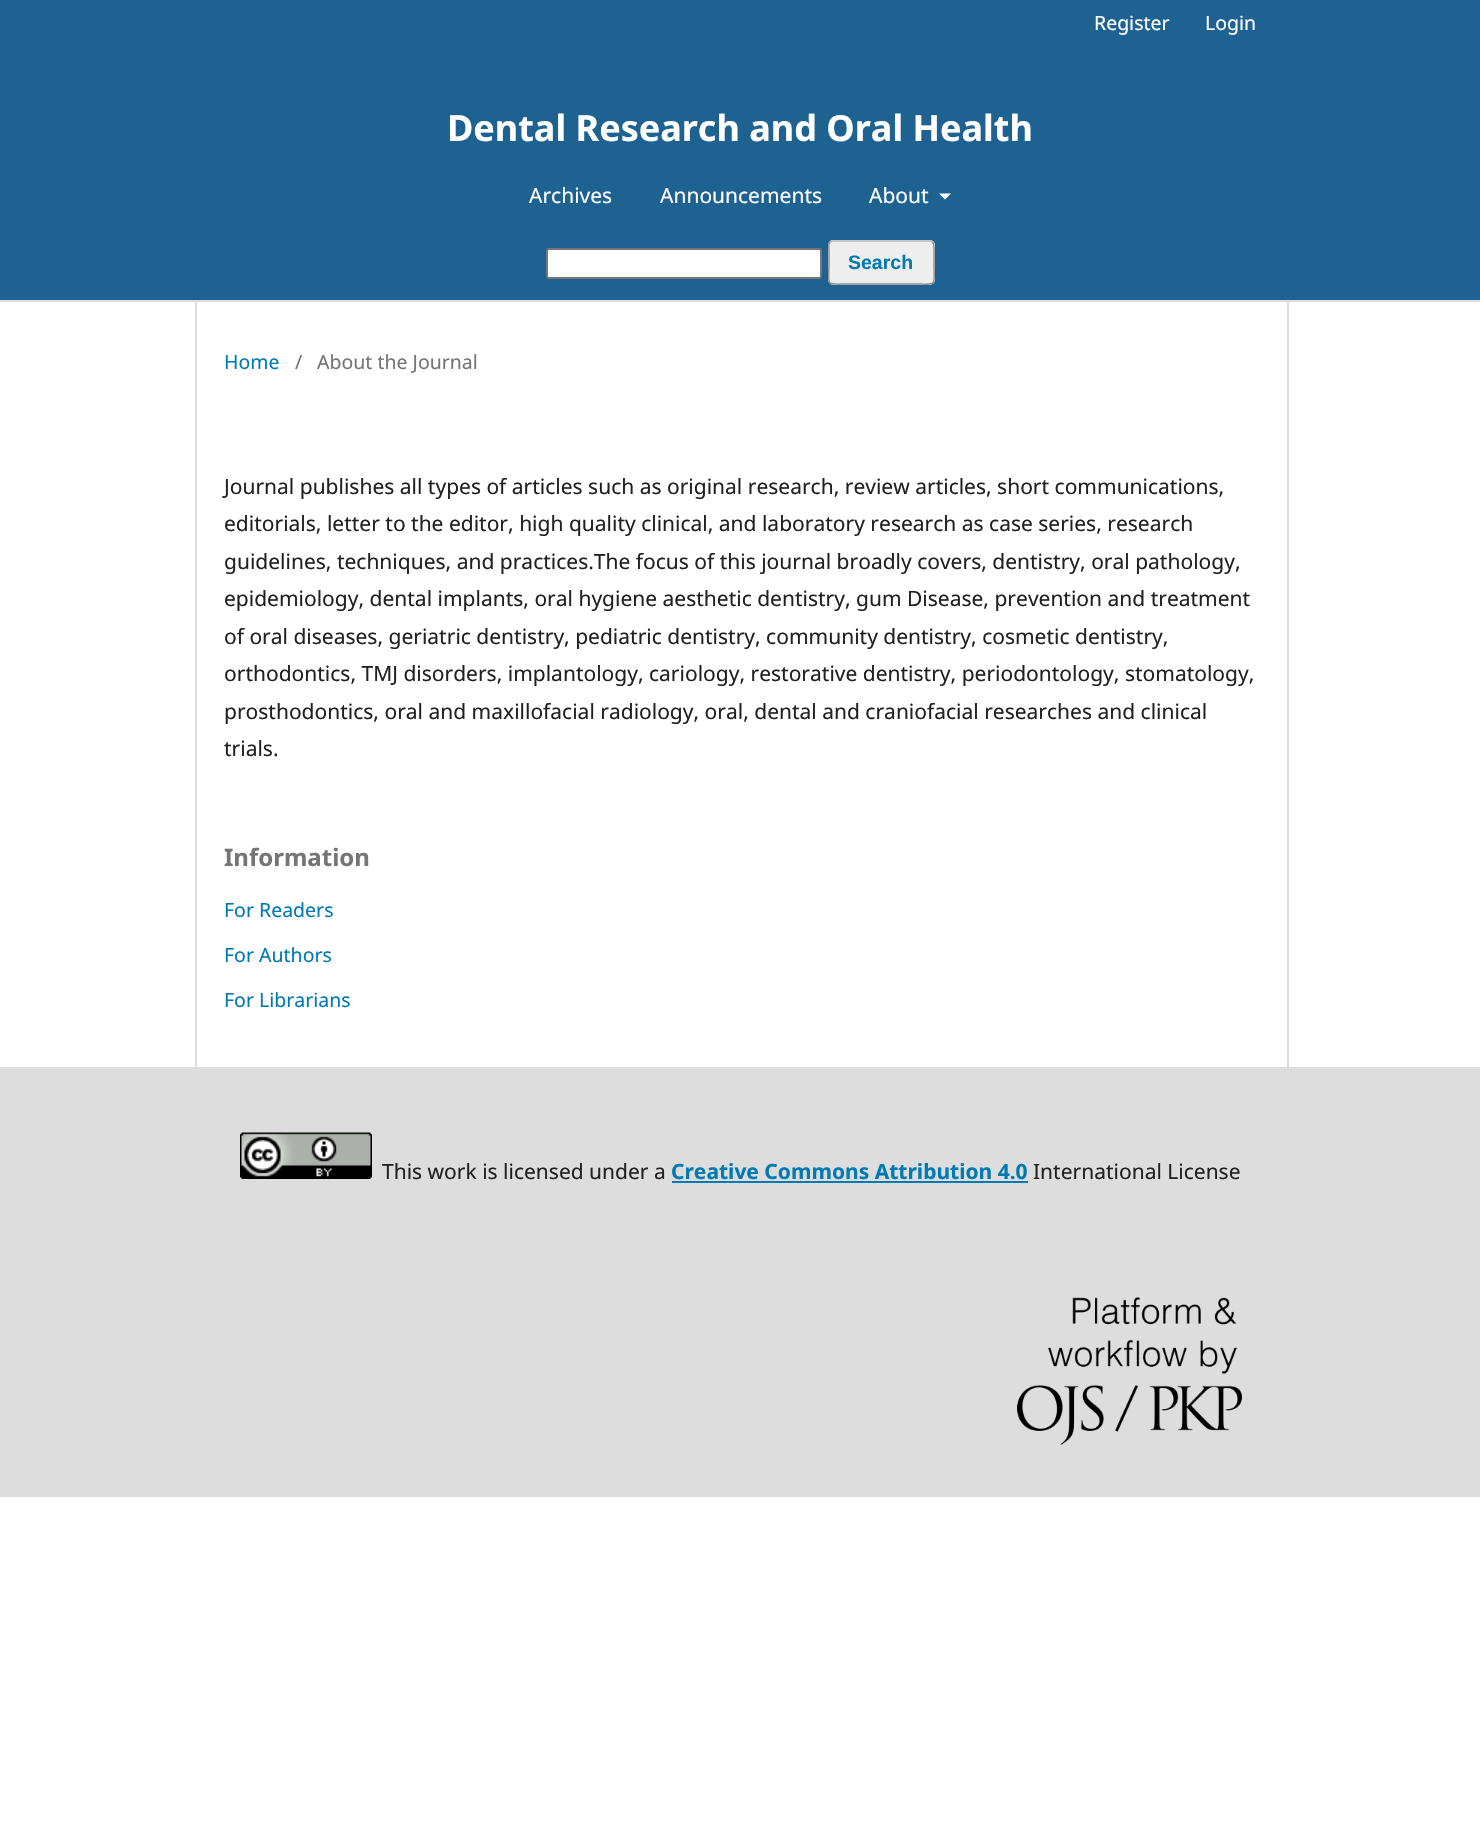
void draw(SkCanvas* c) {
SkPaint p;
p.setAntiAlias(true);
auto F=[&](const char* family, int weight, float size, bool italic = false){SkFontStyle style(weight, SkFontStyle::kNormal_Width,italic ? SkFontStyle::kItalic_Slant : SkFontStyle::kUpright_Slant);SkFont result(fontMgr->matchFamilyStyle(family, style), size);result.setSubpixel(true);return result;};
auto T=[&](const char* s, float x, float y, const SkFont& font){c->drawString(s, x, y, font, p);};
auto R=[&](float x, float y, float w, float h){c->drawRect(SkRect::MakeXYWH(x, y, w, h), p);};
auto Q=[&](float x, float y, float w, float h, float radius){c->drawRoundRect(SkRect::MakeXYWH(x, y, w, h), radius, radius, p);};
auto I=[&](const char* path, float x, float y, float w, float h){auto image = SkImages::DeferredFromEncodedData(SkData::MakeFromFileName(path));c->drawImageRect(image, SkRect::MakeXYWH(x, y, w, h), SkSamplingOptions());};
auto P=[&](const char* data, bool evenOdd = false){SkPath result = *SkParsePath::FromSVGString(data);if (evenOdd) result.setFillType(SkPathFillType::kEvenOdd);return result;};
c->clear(0xffffffff);
p.setColor(0xff1e6292);
R(0,0,1480,300);
p.setColor(0xffdddddd);
R(0,300,1480,2);
auto f1 = F("Noto Sans",400,19.5);
p.setColor(0xffffffff);
T("Register",1094,30,f1);
T("Login",1205,30,f1);
auto f2 = F("Noto Sans",700,36);
T("Dental Research and Oral Health",447,141,f2);
auto f3 = F("Noto Sans",400,21);
T("Archives",529,203,f3);
T("Announcements",660,203,f3);
T("About",869,203,f3);
c->drawPath(P("M939 193.5h12l-6 6z"),p);
c->drawRoundRect(SkRect::MakeXYWH(547,249,274,29),2,2,p);
p.setStroke(true);
p.setStrokeWidth(2);
p.setColor(0xff767676);
c->drawRoundRect(SkRect::MakeXYWH(547,249,274,29),2,2,p);
p.setStroke(false);
p.setColor(0xffeeeeee);
Q(828,240,107,45,5);
p.setStroke(true);
p.setStrokeWidth(1.5);
p.setColor(0xffbbbbbb);
c->drawPath(P("M830 242l2.5-1h98l2 1"),p);
p.setColor(0x66000000);
c->drawPath(P("M932.5 242c2 2 1.5 6.5 1.5 8.5v12c0 25 4.5 21.5-20 21.5h-65c-25 0-20 3.5-20-21.5v-12c0-2-1-6.5 1-8.5"),p);
auto f4 = F("Liberation Sans",700,19.5);
p.setStroke(false);
p.setColor(0xff007ab2);
T("Search",848,269,f4);
p.setColor(0xffdddddd);
R(195,302,2,765);
p.setColor(0xff007ab2);
T("Home",224,369,f1);
p.setColor(0xff757575);
T("/",295,369,f1);
T("About the Journal",317,369,f1);
p.setColor(0xff212121);
T("Journal publishes all types of articles such as original research, review articles, short communications,",224,494,f3);
T("editorials, letter to the editor, high quality clinical, and laboratory research as case series, research",224,531,f3);
T("guidelines, techniques, and practices.The focus of this journal broadly covers, dentistry, oral pathology,",224,569,f3);
T("epidemiology, dental implants, oral hygiene aesthetic dentistry, gum Disease, prevention and treatment",224,606,f3);
T("of oral diseases, geriatric dentistry, pediatric dentistry, community dentistry, cosmetic dentistry,",224,644,f3);
T("orthodontics, TMJ disorders, implantology, cariology, restorative dentistry, periodontology, stomatology,",224,681,f3);
T("prosthodontics, oral and maxillofacial radiology, oral, dental and craniofacial researches and clinical",224,719,f3);
T("trials.",224,756,f3);
p.setColor(0xffdddddd);
R(1287,302,2,765);
auto f5 = F("Noto Sans",700,24);
p.setColor(0xff757575);
T("Information",224,866,f5);
p.setColor(0xff007ab2);
T("For Readers",224,917,f1);
T("For Authors",224,962,f1);
T("For Librarians",224,1007,f1);
p.setColor(0xffdddddd);
R(0,1067,1480,430);
I("1.png",240,1132,132,47);
p.setColor(0xff212121);
T("This work is licensed under a",382,1179,f3);
auto f6 = F("Noto Sans",700,21);
p.setColor(0xff007ab2);
T("Creative Commons Attribution 4.0",671,1179,f6);
R(672,1181,356,2);
p.setColor(0xff212121);
T("International License",1033,1179,f3);
I("2.png",1017,1297,225,148);
}
